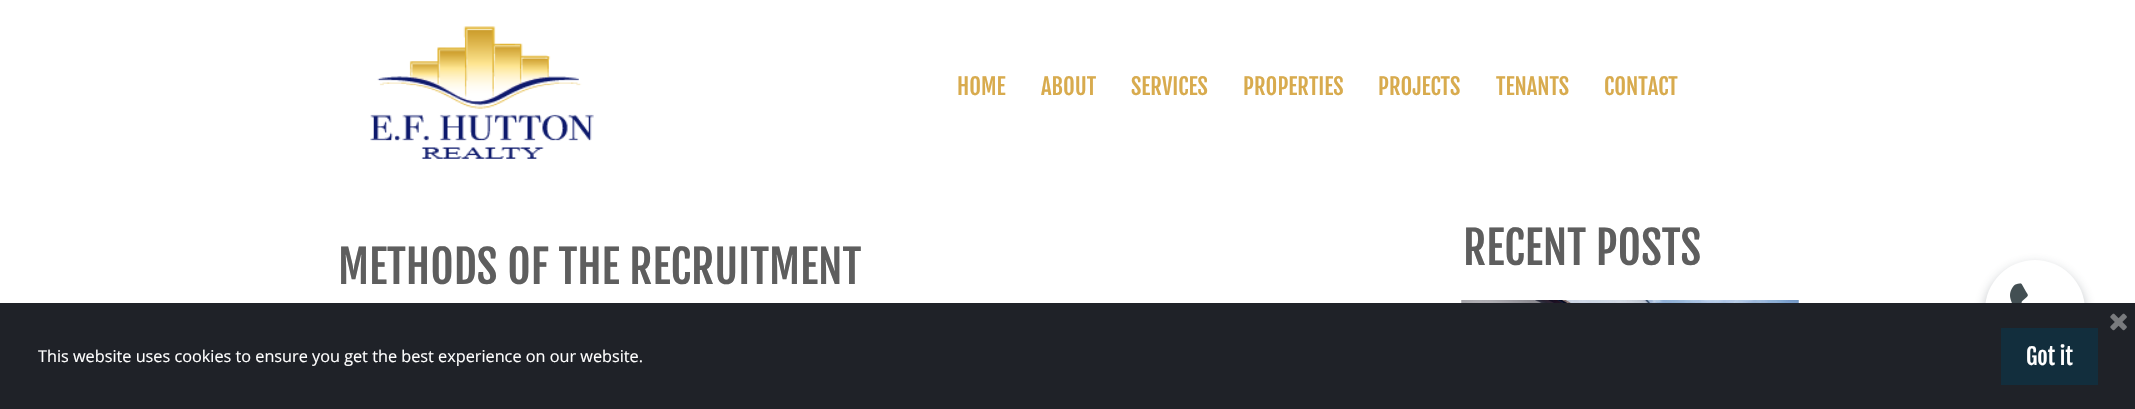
void draw(SkCanvas* c) {
SkPaint p;
p.setAntiAlias(true);
auto F=[&](const char* family, int weight, float size, bool italic = false){SkFontStyle style(weight, SkFontStyle::kNormal_Width,italic ? SkFontStyle::kItalic_Slant : SkFontStyle::kUpright_Slant);SkFont result(fontMgr->matchFamilyStyle(family, style), size);result.setSubpixel(true);return result;};
auto T=[&](const char* s, float x, float y, const SkFont& font){c->drawString(s, x, y, font, p);};
auto R=[&](float x, float y, float w, float h){c->drawRect(SkRect::MakeXYWH(x, y, w, h), p);};
auto I=[&](const char* path, float x, float y, float w, float h){auto image = SkImages::DeferredFromEncodedData(SkData::MakeFromFileName(path));c->drawImageRect(image, SkRect::MakeXYWH(x, y, w, h), SkSamplingOptions());};
c->clear(0xffffffff);
I("1.png",370,26,224,133);
auto f1 = F("Fjalla One",400,22.5);
p.setColor(0xffd8ab4e);
T("HOME",957,95,f1);
T("ABOUT",1041,95,f1);
T("SERVICES",1131,95,f1);
T("PROPERTIES",1243,95,f1);
T("PROJECTS",1378,95,f1);
T("TENANTS",1496,95,f1);
T("CONTACT",1604,95,f1);
auto f2 = F("Fjalla One",400,45);
p.setColor(0xff5e5e5e);
T("METHODS OF THE RECRUITMENT",338,284,f2);
T("RECENT POSTS",1463,265,f2);
I("2.png",1461,300,338,3);
p.setColor(0x592e3a46);
p.setMaskFilter(SkMaskFilter::MakeBlur(kNormal_SkBlurStyle, 6));
c->drawRoundRect(SkRect::MakeXYWH(1985,265,100,100),50,50,p);
p.setMaskFilter(nullptr);
p.setColor(0xffffffff);
c->drawCircle(2035,310,50,p);
I("3.png",2010,283,18,20);
p.setColor(0xff1f2228);
R(0,303,2135,106);
I("4.png",2110,313,17,18);
auto f3 = F("Open Sans",400,16.25);
p.setColor(0xffffffff);
T("This website uses cookies to ensure you get the best experience on our website.",38,362,f3);
p.setColor(0xff122e3d);
R(2001,328,97,57);
p.setColor(0xffffffff);
T("Got it",2026,365,f1);
}
